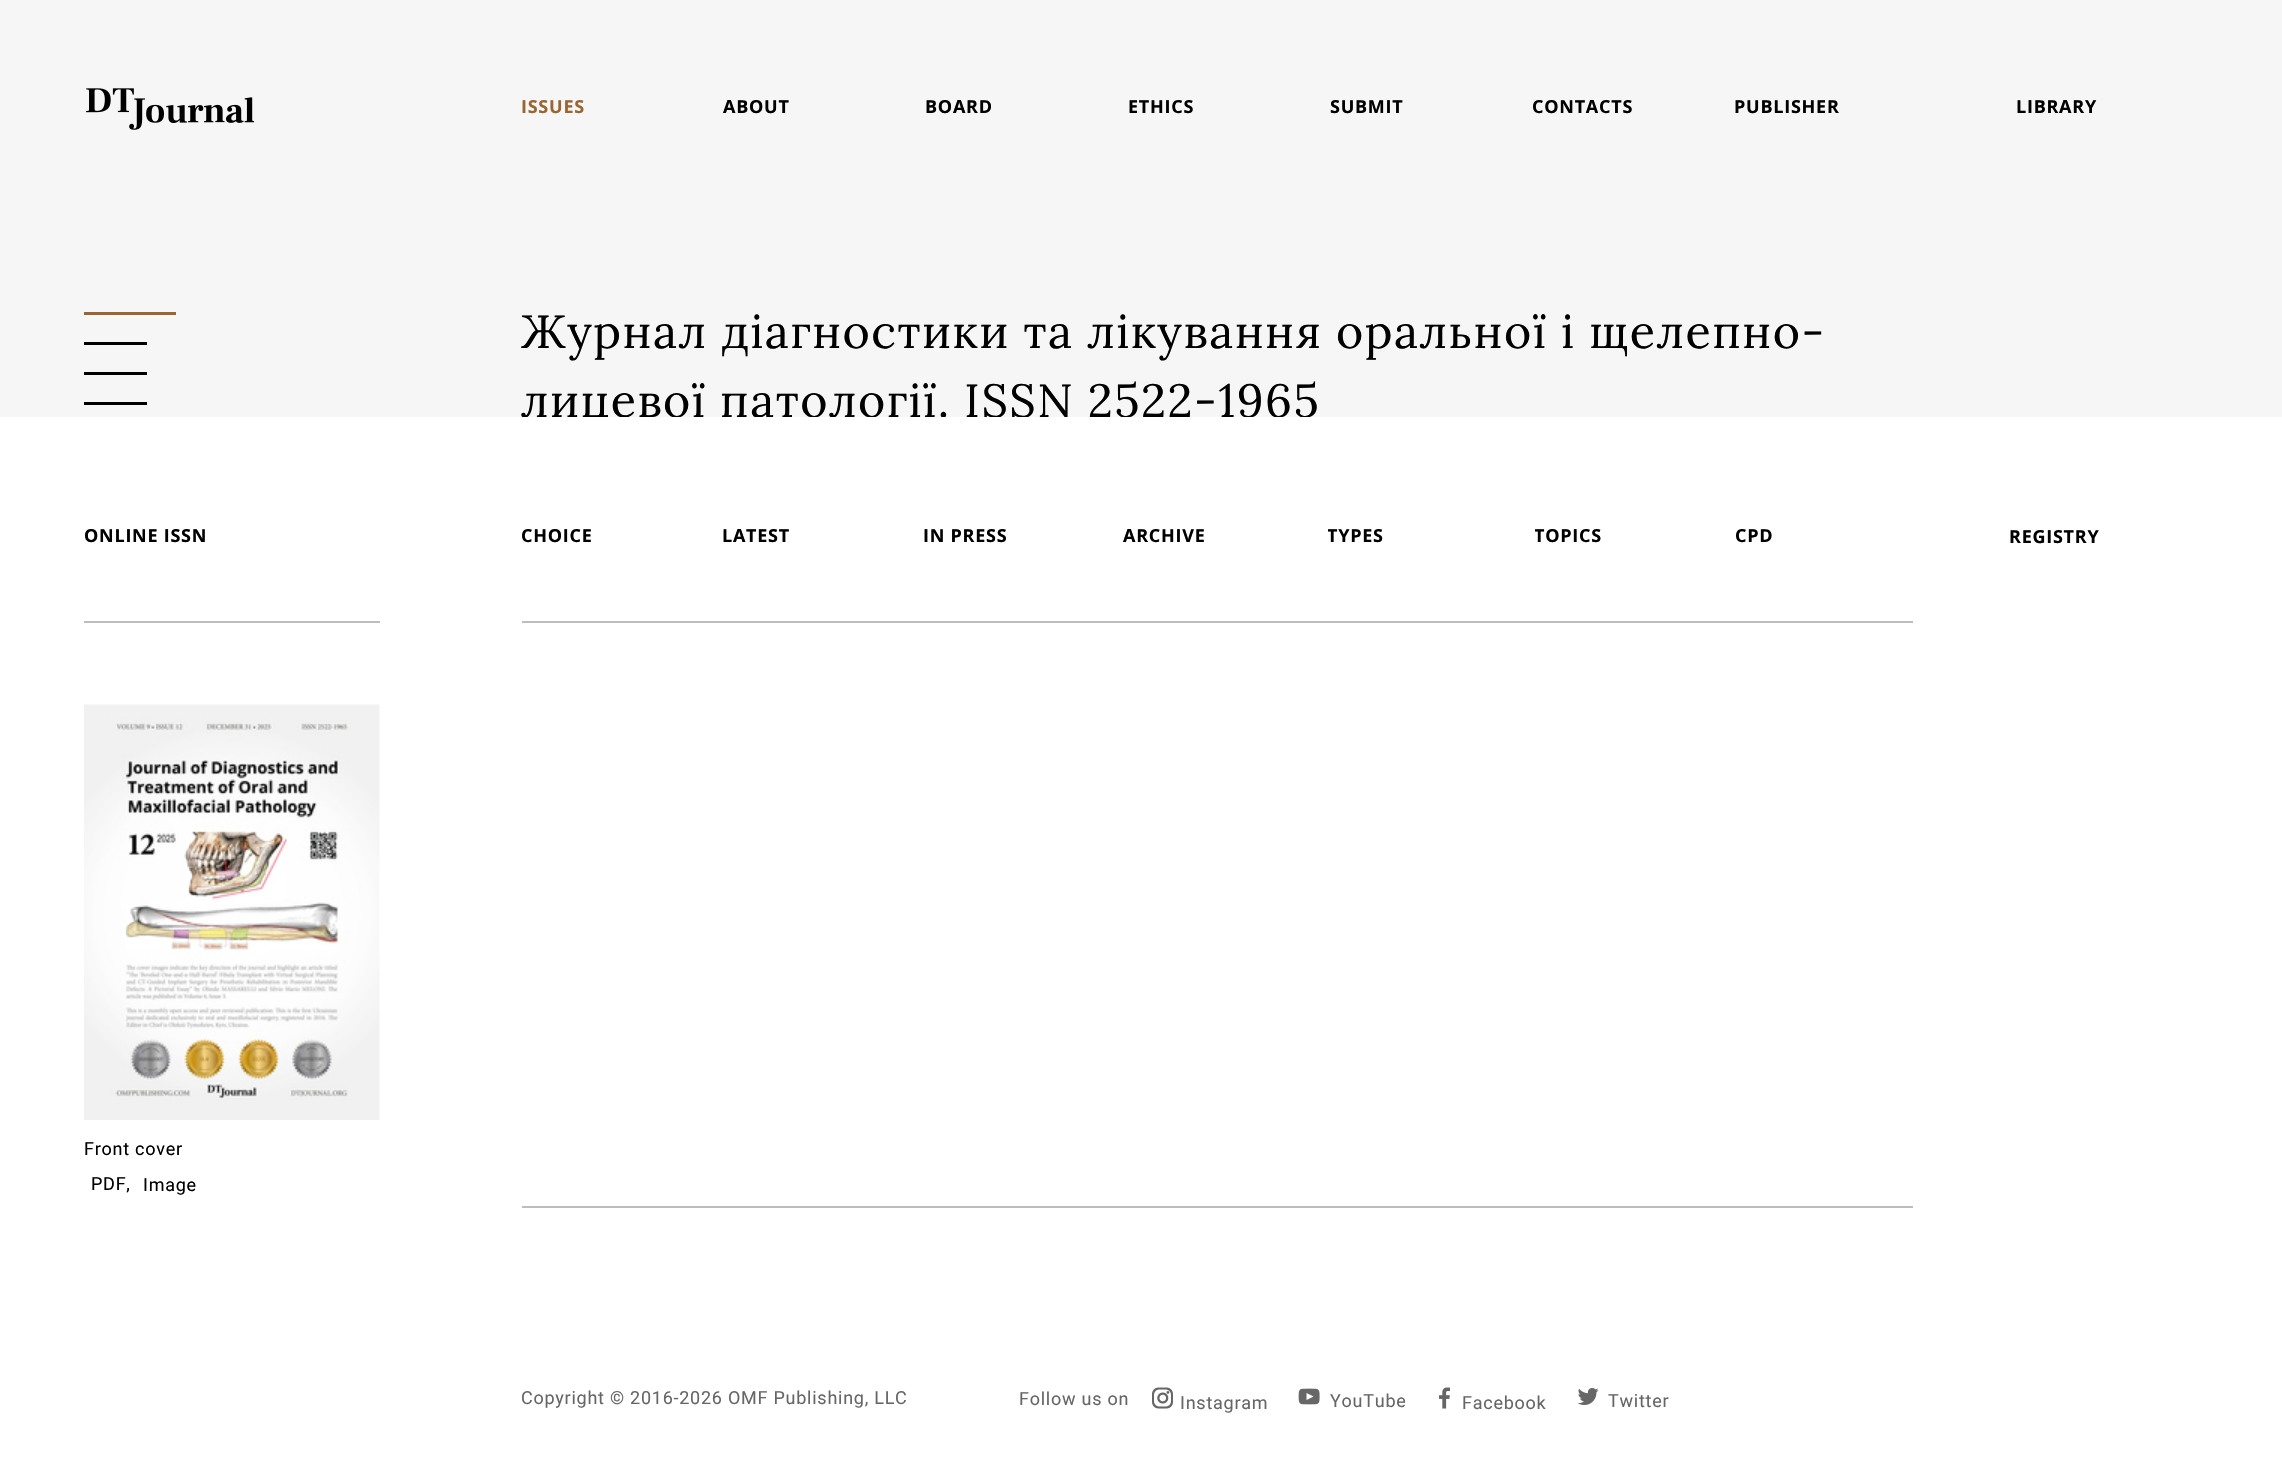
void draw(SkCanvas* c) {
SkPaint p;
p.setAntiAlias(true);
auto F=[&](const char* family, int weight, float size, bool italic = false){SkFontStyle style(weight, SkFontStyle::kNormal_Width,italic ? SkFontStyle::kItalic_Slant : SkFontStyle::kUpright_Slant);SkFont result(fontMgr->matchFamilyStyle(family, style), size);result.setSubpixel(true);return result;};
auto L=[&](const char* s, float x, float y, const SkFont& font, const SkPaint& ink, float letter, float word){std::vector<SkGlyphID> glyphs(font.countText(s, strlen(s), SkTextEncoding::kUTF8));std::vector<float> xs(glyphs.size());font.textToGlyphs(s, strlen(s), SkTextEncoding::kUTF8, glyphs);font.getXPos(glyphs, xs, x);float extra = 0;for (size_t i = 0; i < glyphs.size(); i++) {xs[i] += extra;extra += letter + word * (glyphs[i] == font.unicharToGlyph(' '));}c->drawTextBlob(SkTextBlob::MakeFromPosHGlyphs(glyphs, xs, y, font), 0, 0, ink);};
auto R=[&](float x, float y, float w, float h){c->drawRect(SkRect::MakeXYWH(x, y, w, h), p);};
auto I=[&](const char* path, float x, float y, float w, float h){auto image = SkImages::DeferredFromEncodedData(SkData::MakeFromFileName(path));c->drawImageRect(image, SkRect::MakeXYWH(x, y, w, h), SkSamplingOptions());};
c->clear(0xffffffff);
p.setColor(0xfff6f6f6);
R(0,0,2282,417);
I("1.png",86,88,169,42);
auto f1 = F("Open Sans",700,18);
p.setColor(0xff996633);
L("ISSUES",521,113,f1,p,.75,0);
p.setColor(0xff000000);
L("ABOUT",723,113,f1,p,.75,0);
L("BOARD",925,113,f1,p,.75,0);
L("ETHICS",1128,113,f1,p,.75,0);
L("SUBMIT",1330,113,f1,p,.75,0);
L("CONTACTS",1532,113,f1,p,.75,0);
L("PUBLISHER",1734,113,f1,p,.75,0);
L("LIBRARY",2016,113,f1,p,.75,0);
p.setColor(0xff996633);
R(84,312,92,3);
p.setColor(0xff000000);
R(84,342,63,3);
R(84,372,63,3);
R(84,402,63,3);
auto f2 = F("Lora",400,46.5);
L("Журнал діагностики та лікування оральної і щелепно-",521,348,f2,p,1.5,0);
L("лицевої патології. ISSN 2522-1965",521,417,f2,p,1.5,0);
p.setColor(0xffffffff);
R(523,417,787,9);
p.setColor(0xffbbbdbf);
R(84,621,296,2);
p.setColor(0xff000000);
L("ONLINE ISSN",84,542,f1,p,.75,0);
p.setColor(0xffbbbdbf);
R(522,621,1391,2);
p.setColor(0xff000000);
L("CHOICE",521,542,f1,p,.75,0);
L("LATEST",722,542,f1,p,.75,0);
L("IN PRESS",923,542,f1,p,.75,0);
L("ARCHIVE",1123,542,f1,p,.75,0);
c->save();
c->clipRect(SkRect::MakeXYWH(1328,503,231,64));
L("TYPES",1327,542,f1,p,.75,0);
c->restore();
c->save();
c->clipRect(SkRect::MakeXYWH(1535,503,163,64));
L("TOPICS",1534,542,f1,p,.75,0);
c->restore();
L("CPD",1735,542,f1,p,.75,0);
L("REGISTRY",2009,543,f1,p,.75,0);
I("2.png",84,704,296,416);
auto f3 = F("Roboto",400,18);
L("Front cover",84,1155,f3,p,.75,0);
L("PDF,",91,1190,f3,p,.75,0);
L("Image",143,1191,f3,p,.75,0);
p.setColor(0xffbbbdbf);
R(522,1206,1391,2);
p.setColor(0xff666666);
L("Copyright © 2016-2026 OMF Publishing, LLC",521,1404,f3,p,.75,0);
L("Follow us on",1019,1405,f3,p,.75,0);
I("3.png",1152,1387,21,22);
L("Instagram",1180,1409,f3,p,.75,0);
I("4.png",1298,1388,22,17);
L("YouTube",1330,1407,f3,p,.75,0);
I("5.png",1439,1387,11,22);
L("Facebook",1462,1409,f3,p,.75,0);
I("6.png",1577,1388,22,17);
L("Twitter",1608,1407,f3,p,.75,0);
}
